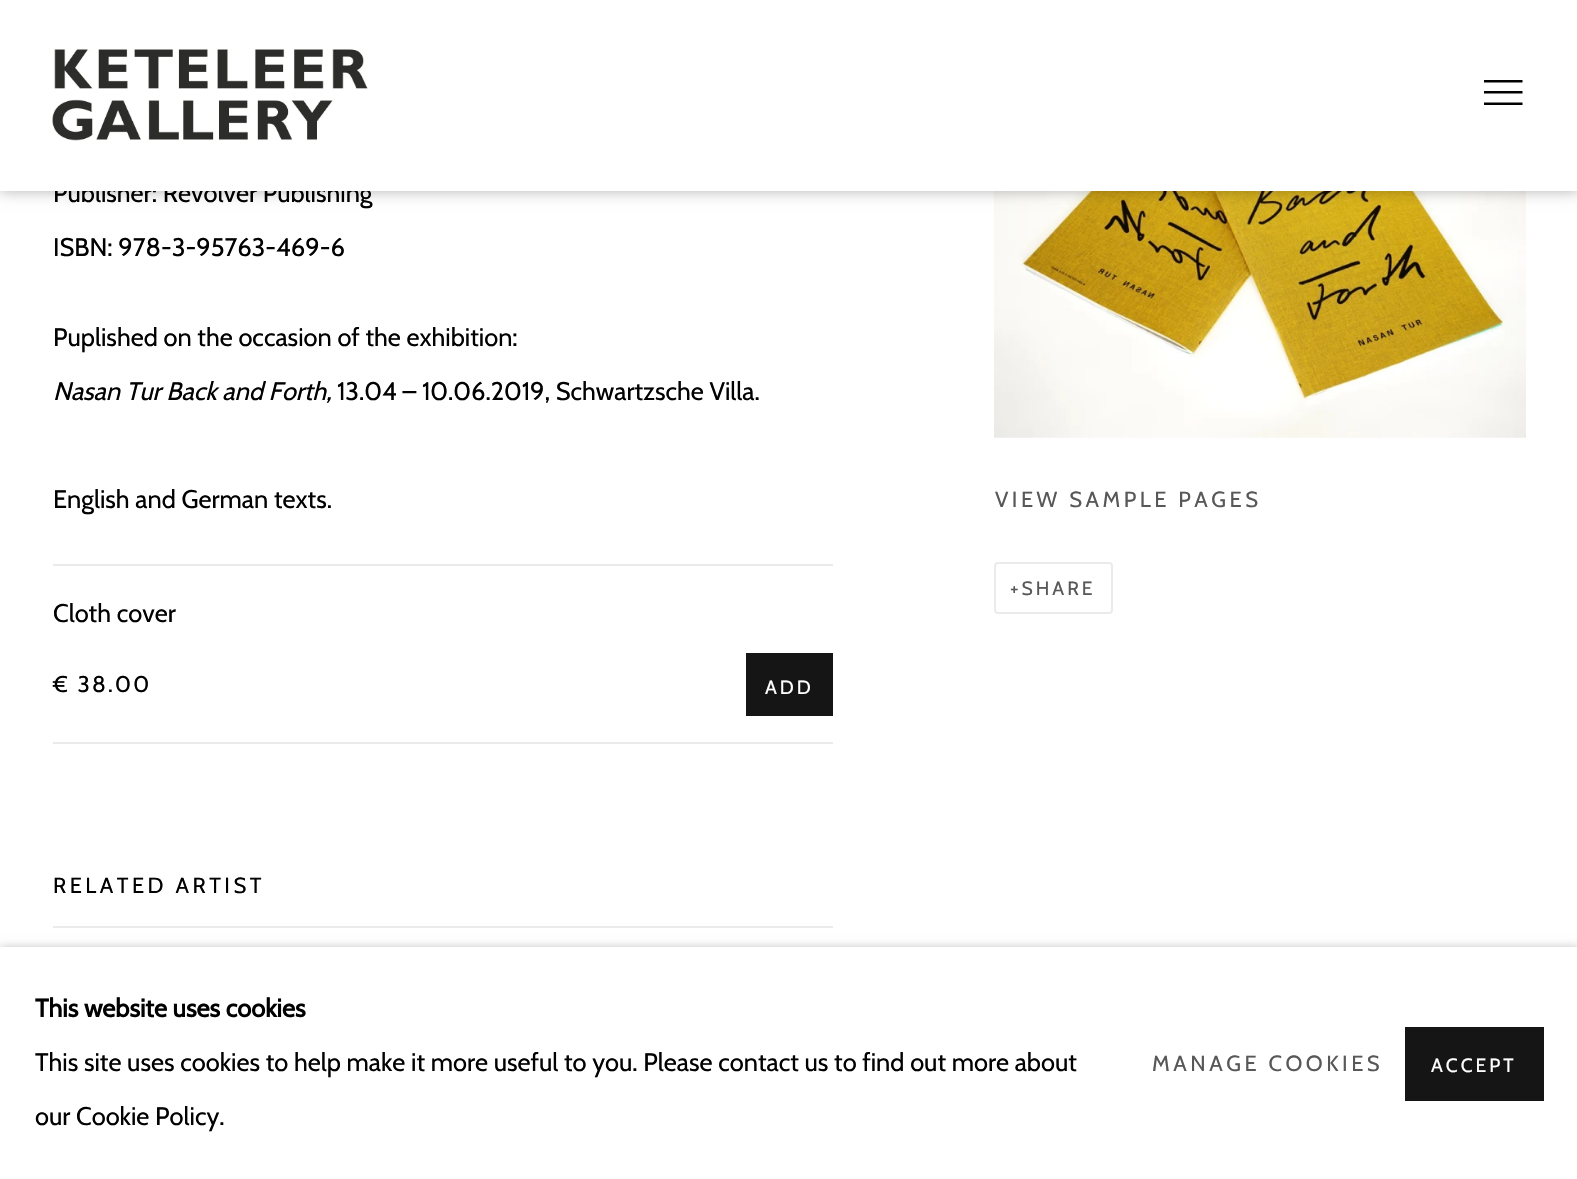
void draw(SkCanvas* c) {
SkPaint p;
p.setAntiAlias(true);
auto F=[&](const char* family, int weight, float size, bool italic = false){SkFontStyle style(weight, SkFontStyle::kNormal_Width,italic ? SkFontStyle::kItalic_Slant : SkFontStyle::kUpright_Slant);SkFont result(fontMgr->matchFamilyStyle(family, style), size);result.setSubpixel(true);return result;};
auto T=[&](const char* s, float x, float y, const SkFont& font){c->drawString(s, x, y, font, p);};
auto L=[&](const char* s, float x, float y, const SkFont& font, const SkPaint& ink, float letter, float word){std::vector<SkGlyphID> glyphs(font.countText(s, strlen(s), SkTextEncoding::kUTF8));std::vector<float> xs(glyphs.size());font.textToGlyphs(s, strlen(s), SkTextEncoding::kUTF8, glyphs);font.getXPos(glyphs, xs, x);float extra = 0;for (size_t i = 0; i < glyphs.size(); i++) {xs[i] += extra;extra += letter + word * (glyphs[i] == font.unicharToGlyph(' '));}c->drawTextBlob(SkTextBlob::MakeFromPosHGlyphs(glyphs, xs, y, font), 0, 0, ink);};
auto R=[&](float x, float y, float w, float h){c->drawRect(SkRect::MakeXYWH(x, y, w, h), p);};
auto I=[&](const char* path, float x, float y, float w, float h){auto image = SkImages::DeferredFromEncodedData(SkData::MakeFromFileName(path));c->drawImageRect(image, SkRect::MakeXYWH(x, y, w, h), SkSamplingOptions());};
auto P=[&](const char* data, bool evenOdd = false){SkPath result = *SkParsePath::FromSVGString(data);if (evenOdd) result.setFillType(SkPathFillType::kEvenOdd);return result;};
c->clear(0xffffffff);
I("2.png",994,191,532,247);
p.setColor(0x4d000000);
p.setMaskFilter(SkMaskFilter::MakeBlur(kNormal_SkBlurStyle, 7));
c->drawRect(SkRect::MakeXYWH(0,0,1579,191),p);
p.setMaskFilter(nullptr);
auto f1 = F("Cabin",400,25.4);
p.setColor(0xff010101);
T("Publisher: Revolver Publishing",53,202,f1);
p.setColor(0xffffffff);
R(0,0,1577,191);
I("1.png",52,49,316,92);
p.setColor(0xff010101);
c->drawPath(P("M1484 105v-2.5h38.5v2.5zm0-11.5v-2.5h38.5v2.5zm0-11v-2.5h38.5v2.5z"),p);
T("ISBN: 978-3-95763-469-6",53,256,f1);
T("Puplished on the occasion of the exhibition:",53,346,f1);
auto f2 = F("Cabin",400,25.4,true);
T("Nasan Tur Back and Forth,",53,400,f2);
T("13.04 – 10.06.2019, Schwartzsche Villa.",337,400,f1);
T("English and German texts.",53,508,f1);
p.setColor(0xffeaeaea);
R(53,742,780,2);
R(53,564,780,2);
p.setColor(0xff010101);
T("Cloth cover",53,622,f1);
auto f3 = F("Cabin",400,22.75);
L("€ 38.00",53,692,f3,p,2.25,0);
p.setColor(0xff151515);
R(746,653,87,63);
auto f4 = F("Cabin",400,19.25);
p.setColor(0xffffffff);
L("ADD",765,694,f4,p,3,0);
p.setColor(0xffebebeb);
R(53,926,780,2);
auto f5 = F("Cabin",400,21.9);
p.setColor(0xff010101);
L("RELATED ARTIST",53,893,f5,p,3.5,0);
p.setColor(0xff585858);
L("VIEW SAMPLE PAGES",995,507,f5,p,3.5,0);
p.setStroke(true);
p.setStrokeWidth(2);
p.setColor(0xffebebeb);
c->drawRoundRect(SkRect::MakeXYWH(995,563,117,50),3,3,p);
p.setStroke(false);
p.setColor(0xff585858);
L("+SHARE",1010,595,f4,p,3,0);
p.setColor(0x3b000000);
p.setMaskFilter(SkMaskFilter::MakeBlur(kNormal_SkBlurStyle, 4.5));
c->drawRect(SkRect::MakeXYWH(0,947,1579,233),p);
p.setMaskFilter(nullptr);
p.setColor(0xffffffff);
R(0,947,1577,232);
auto f6 = F("Cabin",700,25.4);
p.setColor(0xff010101);
T("This website uses cookies",35,1017,f6);
T("This site uses cookies to help make it more useful to you. Please contact us to find out more about",35,1071,f1);
T("our Cookie Policy.",35,1125,f1);
p.setColor(0xff585858);
L("MANAGE COOKIES",1152,1071,f5,p,3.5,0);
p.setColor(0xff151515);
R(1405,1027,139,74);
p.setColor(0xffffffff);
L("ACCEPT",1431,1072,f4,p,3,0);
}
